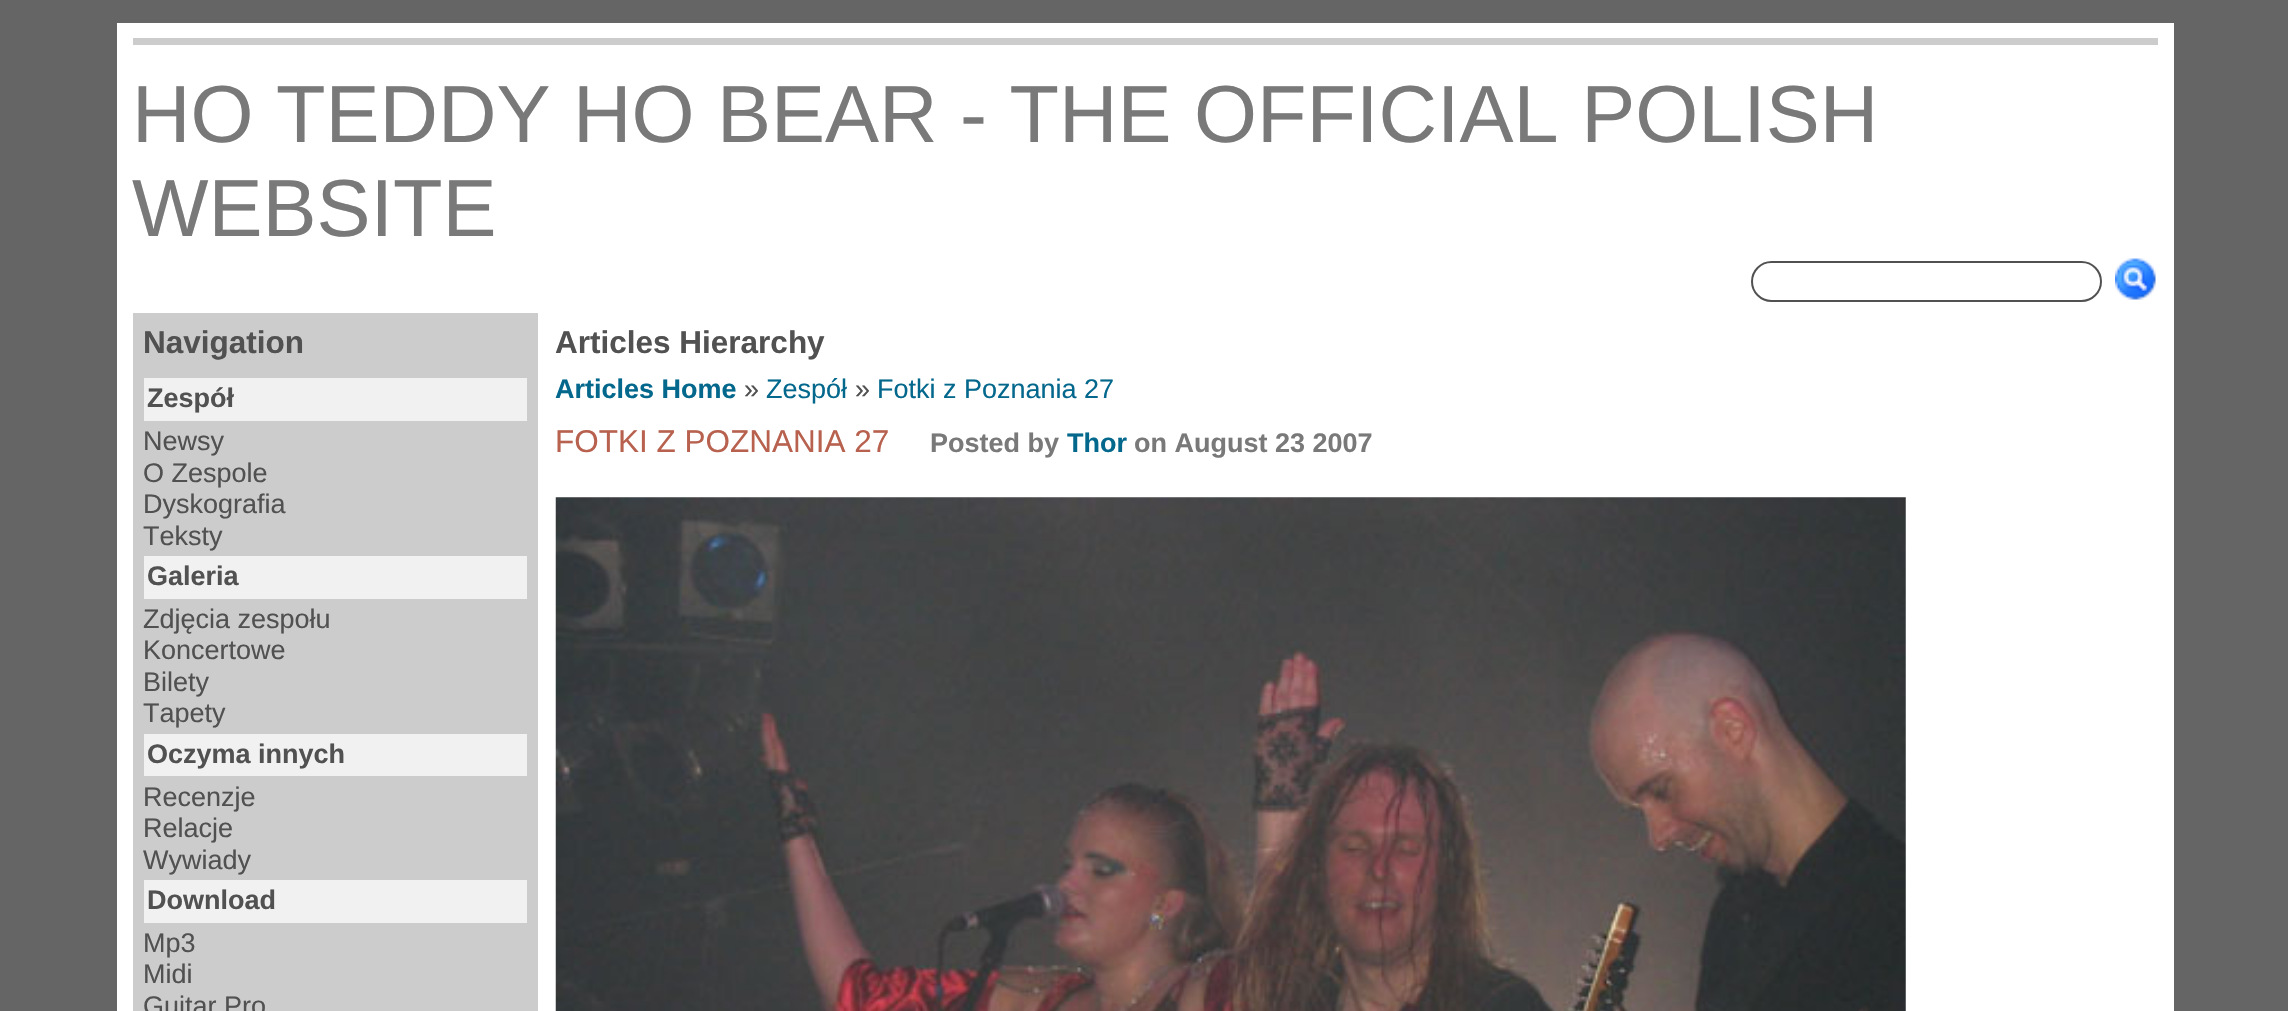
void draw(SkCanvas* c) {
SkPaint p;
p.setAntiAlias(true);
auto F=[&](const char* family, int weight, float size, bool italic = false){SkFontStyle style(weight, SkFontStyle::kNormal_Width,italic ? SkFontStyle::kItalic_Slant : SkFontStyle::kUpright_Slant);SkFont result(fontMgr->matchFamilyStyle(family, style), size);result.setSubpixel(true);return result;};
auto T=[&](const char* s, float x, float y, const SkFont& font){c->drawString(s, x, y, font, p);};
auto R=[&](float x, float y, float w, float h){c->drawRect(SkRect::MakeXYWH(x, y, w, h), p);};
auto I=[&](const char* path, float x, float y, float w, float h){auto image = SkImages::DeferredFromEncodedData(SkData::MakeFromFileName(path));c->drawImageRect(image, SkRect::MakeXYWH(x, y, w, h), SkSamplingOptions());};
c->clear(0xff656565);
p.setColor(0xffffffff);
R(117,23,2057,988);
p.setColor(0xffcccccc);
R(133,38,2025,7);
auto f1 = F("Liberation Sans",400,81);
p.setColor(0xff797979);
T("HO TEDDY HO BEAR - THE OFFICIAL POLISH",132,142,f1);
T("WEBSITE",132,236,f1);
p.setStroke(true);
p.setStrokeWidth(2);
p.setColor(0xff515151);
c->drawRoundRect(SkRect::MakeXYWH(1752,262,349,39),19.5,19.5,p);
I("1.png",2115,258,41,42);
p.setStroke(false);
p.setColor(0xffcccccc);
R(133,313,405,698);
auto f2 = F("Liberation Sans",700,31.5);
p.setColor(0xff515151);
T("Navigation",143,353,f2);
p.setColor(0xfff1f1f1);
R(144,378,383,43);
auto f3 = F("Liberation Sans",700,27);
p.setColor(0xff515151);
T("Zespół",147,407,f3);
auto f4 = F("Liberation Sans",400,27);
T("Newsy",143,450,f4);
T("O Zespole",143,482,f4);
T("Dyskografia",143,513,f4);
T("Teksty",143,545,f4);
p.setColor(0xfff1f1f1);
R(144,556,383,43);
p.setColor(0xff515151);
T("Galeria",147,585,f3);
T("Zdjęcia zespołu",143,628,f4);
T("Koncertowe",143,659,f4);
T("Bilety",143,691,f4);
T("Tapety",143,722,f4);
p.setColor(0xfff1f1f1);
R(144,734,383,42);
p.setColor(0xff515151);
T("Oczyma innych",147,763,f3);
T("Recenzje",143,806,f4);
T("Relacje",143,837,f4);
T("Wywiady",143,869,f4);
p.setColor(0xfff1f1f1);
R(144,880,383,43);
p.setColor(0xff515151);
T("Download",147,909,f3);
T("Mp3",143,952,f4);
T("Midi",143,983,f4);
T("Guitar Pro",143,1015,f4);
T("Articles Hierarchy",555,353,f2);
p.setColor(0xff04688d);
T("Articles Home",555,398,f3);
p.setColor(0xff515151);
T("»",744,398,f4);
p.setColor(0xff04688d);
T("Zespół",766,398,f4);
p.setColor(0xff515151);
T("»",855,398,f4);
p.setColor(0xff04688d);
T("Fotki z Poznania 27",877,398,f4);
auto f5 = F("Liberation Sans",400,31.5);
p.setColor(0xffb7614e);
T("FOTKI Z POZNANIA 27",555,452,f5);
p.setColor(0xff797979);
T("Posted by",930,452,f3);
p.setColor(0xff04688d);
T("Thor",1067,452,f3);
p.setColor(0xff797979);
T("on August 23 2007",1134,452,f3);
I("2.png",555,497,1351,514);
}
